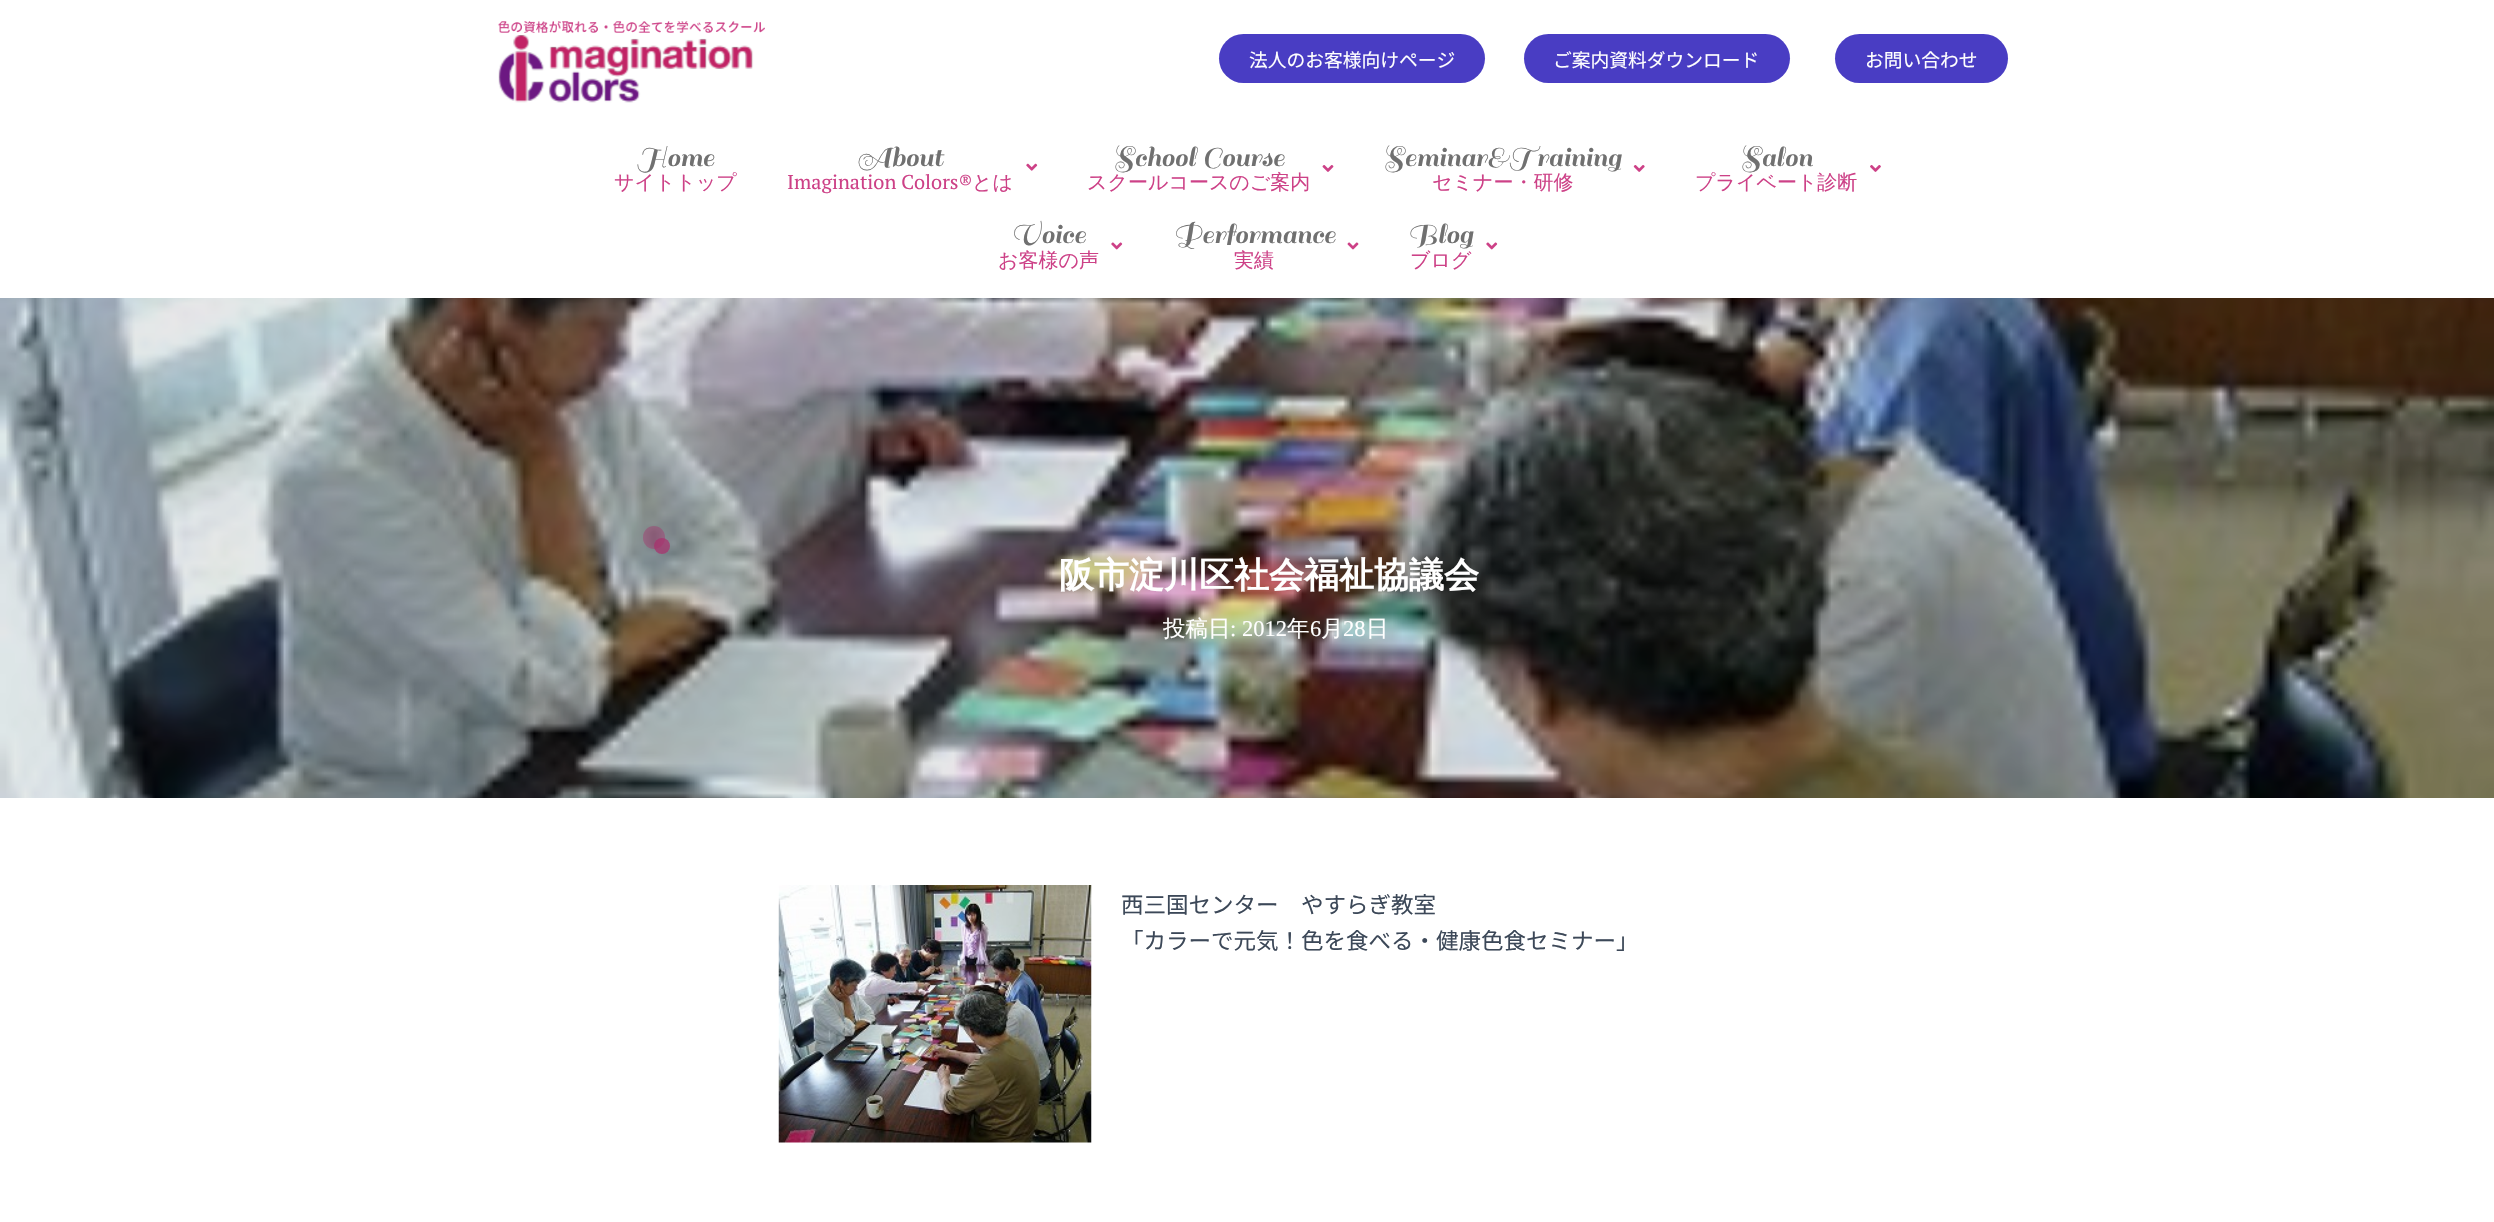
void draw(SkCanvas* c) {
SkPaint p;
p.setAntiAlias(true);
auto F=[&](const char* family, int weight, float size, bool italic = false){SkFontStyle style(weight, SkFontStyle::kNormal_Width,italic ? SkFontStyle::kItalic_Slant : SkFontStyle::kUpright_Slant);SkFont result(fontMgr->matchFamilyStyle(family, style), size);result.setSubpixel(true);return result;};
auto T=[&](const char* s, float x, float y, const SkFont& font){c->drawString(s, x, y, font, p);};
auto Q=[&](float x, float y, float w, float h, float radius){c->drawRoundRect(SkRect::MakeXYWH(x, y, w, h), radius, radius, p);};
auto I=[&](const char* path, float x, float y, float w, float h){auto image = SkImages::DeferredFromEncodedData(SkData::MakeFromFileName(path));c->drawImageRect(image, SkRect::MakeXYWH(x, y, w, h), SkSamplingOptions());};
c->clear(0xffffffff);
I("1.png",498,21,267,82);
p.setColor(0xff493dc3);
Q(1219,34,266,49,24.5);
auto f1 = F("Noto Sans JP",100,18.75);
p.setColor(0xffffffff);
T("法人のお客様向けページ",1249,67,f1);
p.setColor(0xff493dc3);
Q(1524,34,266,49,24.5);
p.setColor(0xffffffff);
T("ご案内資料ダウンロード",1553,67,f1);
p.setColor(0xff493dc3);
Q(1835,34,173,49,24.5);
p.setColor(0xffffffff);
T("お問い合わせ",1865,67,f1);
auto f2 = F("Sail",400,30);
p.setColor(0xff707070);
T("Home",637,166,f2);
auto f3 = F("WenQuanYi Zen Hei",500,20);
p.setColor(0xffcd4187);
T("サイトトップ",614,189,f3);
p.setColor(0xff707070);
T("About",857,166,f2);
auto f4 = F("PT Serif",400,20);
p.setColor(0xffcd4187);
T("Imagination Colors®",787,189,f4);
T("とは",972,189,f3);
I("2.png",1026,163,12,8);
p.setColor(0xff707070);
T("School Course",1113,166,f2);
p.setColor(0xffcd4187);
T("スクールコースのご案内",1087,189,f3);
I("3.png",1322,165,12,7);
p.setColor(0xff707070);
T("Seminar&Training",1383,166,f2);
p.setColor(0xffcd4187);
T("セミナー・研修",1432,189,f3);
I("4.png",1633,165,12,7);
p.setColor(0xff707070);
T("Salon",1740,166,f2);
p.setColor(0xffcd4187);
T("プライベート診断",1695,189,f3);
I("5.png",1870,165,11,7);
p.setColor(0xff707070);
T("Voice",1011,243,f2);
p.setColor(0xffcd4187);
T("お客様の声",998,267,f3);
I("6.png",1111,242,12,8);
p.setColor(0xff707070);
T("Performance",1173,243,f2);
p.setColor(0xffcd4187);
T("実績",1234,267,f3);
I("7.png",1347,242,12,8);
p.setColor(0xff707070);
T("Blog",1408,243,f2);
p.setColor(0xffcd4187);
T("ブログ",1410,267,f3);
I("6.png",1486,242,12,8);
I("8.png",0,298,2494,500);
auto f5 = F("Noto Sans",100,42);
p.setColor(0xffab2d6c);
T("大",1016,587,f5);
auto f6 = F("WenQuanYi Zen Hei",700,35);
p.setColor(0xffffffff);
T("阪市淀川区社会福祉協議会",1059,587,f6);
p.setColor(0xb3ab2d6c);
c->drawCircle(662,546,8,p);
p.setColor(0x66ab2d6c);
Q(643,526,22,23,11);
auto f7 = F("WenQuanYi Zen Hei",500,22.5);
p.setColor(0xffffffff);
T("投稿日",1163,636,f7);
auto f8 = F("Liberation Serif",400,22.5);
T(": 2012",1230,636,f8);
T("年",1287,636,f7);
T("6",1310,636,f8);
T("月",1321,636,f7);
T("28",1343,636,f8);
T("日",1366,636,f7);
I("9.png",778,885,314,258);
auto f9 = F("Noto Sans JP",100,22.5);
p.setColor(0xff3c4858);
T("西三国センター　やすらぎ教室",1121,913,f9);
T("「カラーで元気！色を食べる・健康色食セミナー」",1121,949,f9);
}
